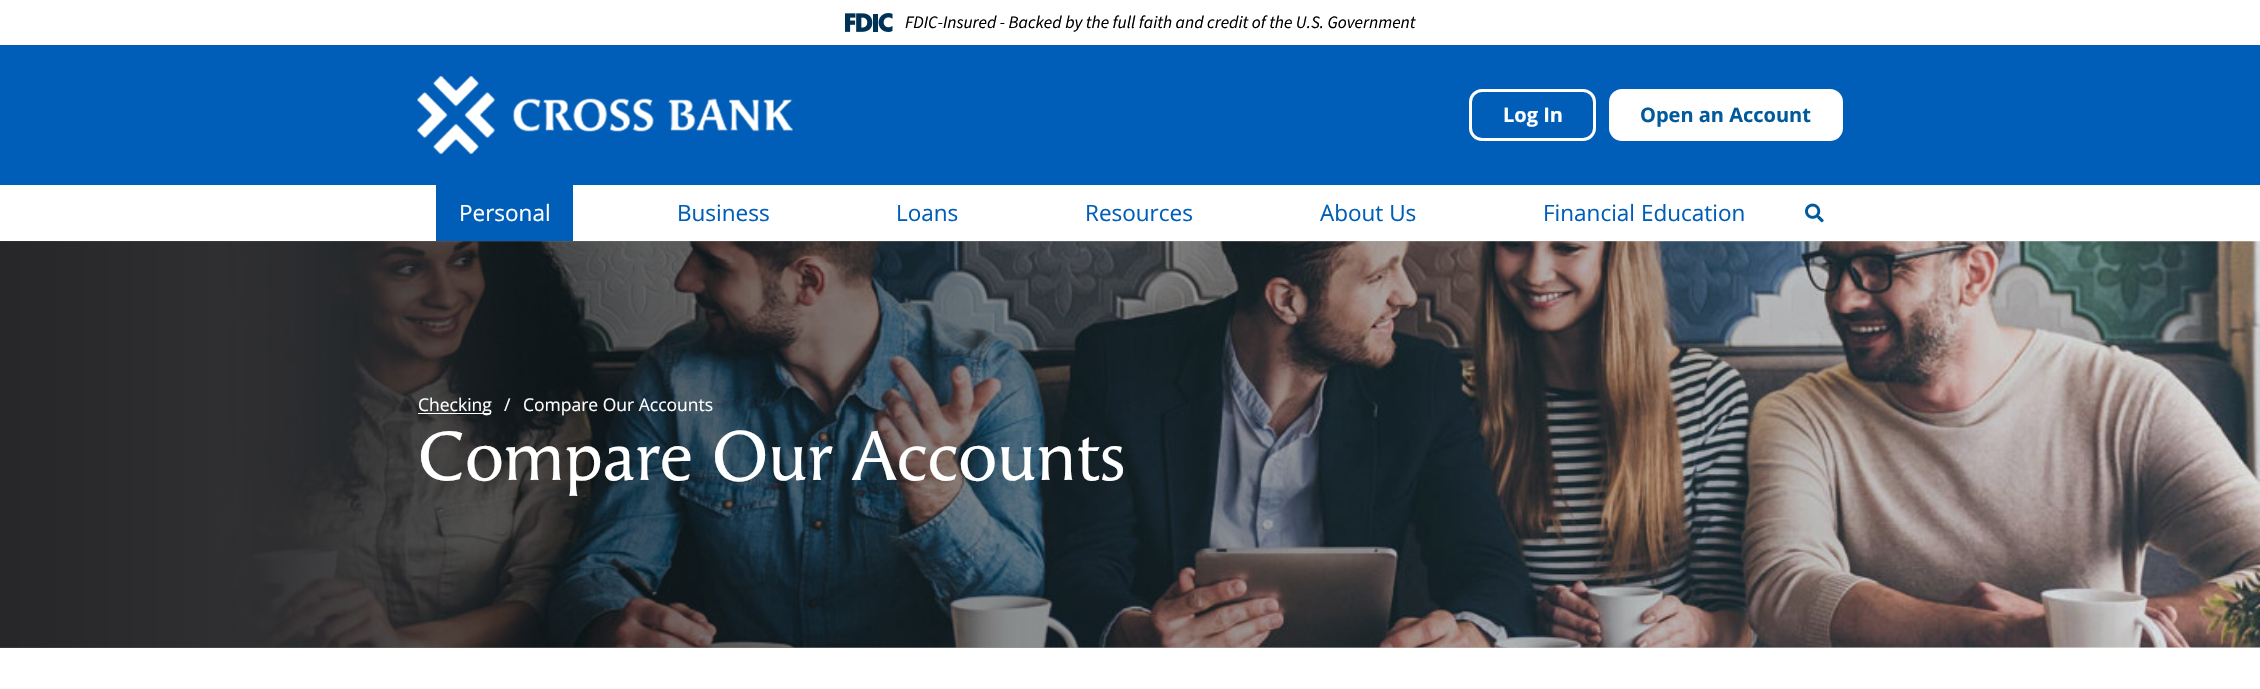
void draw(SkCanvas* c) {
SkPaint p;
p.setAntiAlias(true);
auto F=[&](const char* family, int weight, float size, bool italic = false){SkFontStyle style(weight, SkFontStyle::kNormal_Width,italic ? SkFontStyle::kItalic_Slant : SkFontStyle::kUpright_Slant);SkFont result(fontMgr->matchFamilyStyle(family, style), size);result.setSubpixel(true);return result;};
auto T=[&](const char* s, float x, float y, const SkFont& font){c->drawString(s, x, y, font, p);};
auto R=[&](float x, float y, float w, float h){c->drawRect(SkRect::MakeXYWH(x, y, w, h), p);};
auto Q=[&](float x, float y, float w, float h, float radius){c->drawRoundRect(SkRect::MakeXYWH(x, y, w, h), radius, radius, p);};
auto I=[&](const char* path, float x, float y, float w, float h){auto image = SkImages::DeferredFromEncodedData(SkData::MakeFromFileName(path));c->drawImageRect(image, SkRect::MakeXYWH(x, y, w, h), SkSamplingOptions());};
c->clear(0xffffffff);
I("1.png",845,13,48,19);
auto f1 = F("Source Sans 3",200,17.5,true);
p.setColor(0xff000000);
T("FDIC-Insured - Backed by the full faith and credit of the U.S. Government",905,28,f1);
p.setColor(0xff005eb8);
R(0,45,2260,140);
I("2.png",417,76,376,78);
p.setStroke(true);
p.setStrokeWidth(3);
p.setColor(0xffffffff);
c->drawRoundRect(SkRect::MakeXYWH(1470.5,90.5,124,49),11.5,11.5,p);
auto f2 = F("Open Sans",700,20);
p.setStroke(false);
T("Log In",1503,122,f2);
Q(1609,89,234,52,13);
p.setColor(0xff005a9c);
T("Open an Account",1640,122,f2);
p.setColor(0xff005eb8);
R(436,185,137,56);
auto f3 = F("Open Sans",400,22.5);
p.setColor(0xffffffff);
T("Personal",459,221,f3);
p.setColor(0xff005eb8);
T("Business",677,221,f3);
T("Loans",896,221,f3);
T("Resources",1085,221,f3);
T("About Us",1320,221,f3);
T("Financial Education",1543,221,f3);
I("3.png",1805,203,19,20);
I("4.png",0,241,2260,407);
{
const SkColor colors[] = {0xb3000000,0x00000000};
const float stops[] = {0,1};
const SkPoint ends[] = {{0,444}, {2260,444}};
p.setShader(SkGradientShader::MakeLinear(ends, colors, stops, 2, SkTileMode::kClamp));
p.setAlpha(255);
}
R(0,241,2190,407);
p.setShader(nullptr);
p.setColor(0xffffffff);
R(418,413,73,1);
auto f4 = F("Open Sans",400,17.5);
T("Checking",418,411,f4);
T("/",504,411,f4);
T("Compare Our Accounts",523,411,f4);
auto f5 = F("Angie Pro",400,68.75);
T("Compare Our Accounts",418,480,f5);
}
